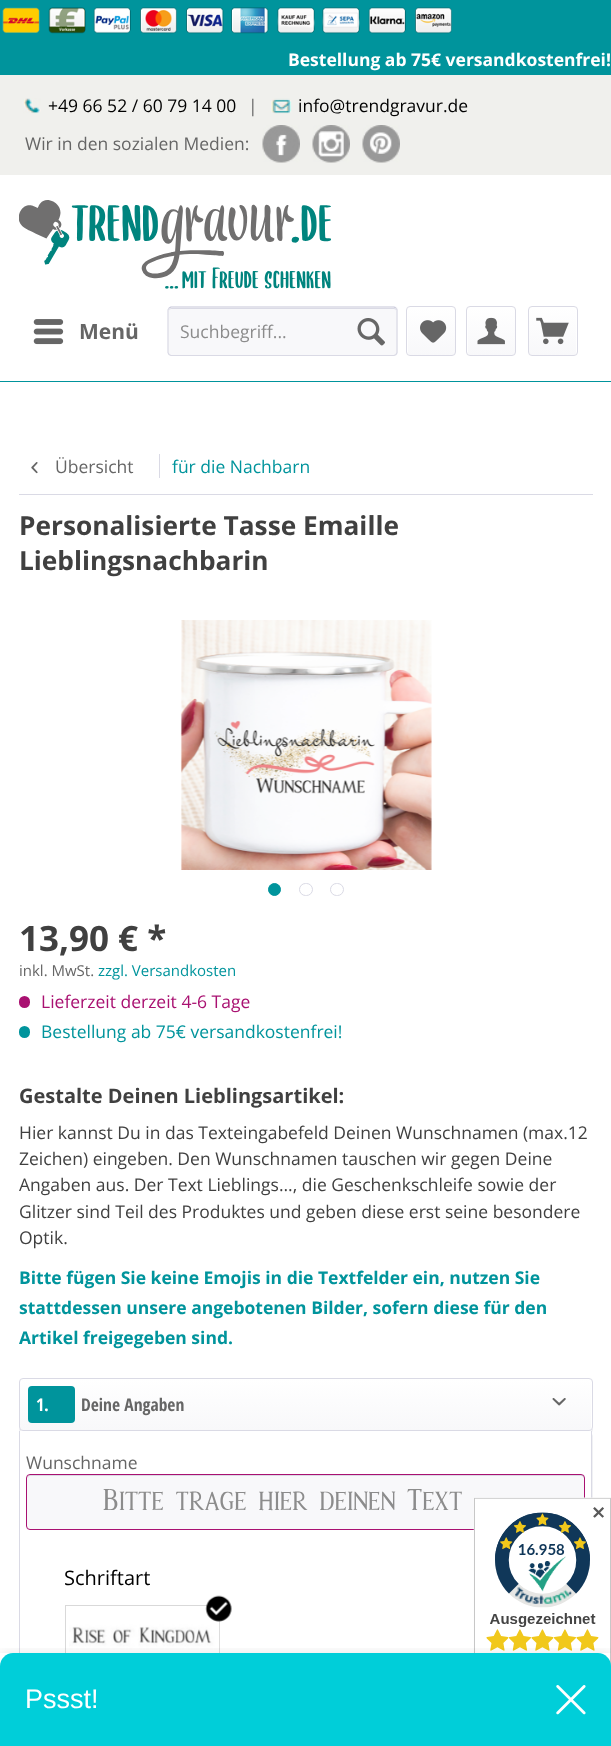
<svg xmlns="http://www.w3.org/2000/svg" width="611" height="1746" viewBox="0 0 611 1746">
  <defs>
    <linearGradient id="g1" gradientUnits="userSpaceOnUse" x1="431" y1="308" x2="431" y2="355"><stop offset="0" stop-color="rgb(255,255,255)"/><stop offset="1" stop-color="rgb(248,248,250)"/></linearGradient>
    <linearGradient id="g2" gradientUnits="userSpaceOnUse" x1="491" y1="308" x2="491" y2="355"><stop offset="0" stop-color="rgb(255,255,255)"/><stop offset="1" stop-color="rgb(248,248,250)"/></linearGradient>
    <linearGradient id="g3" gradientUnits="userSpaceOnUse" x1="553" y1="308" x2="553" y2="355"><stop offset="0" stop-color="rgb(255,255,255)"/><stop offset="1" stop-color="rgb(248,248,250)"/></linearGradient>
    <clipPath id="clip1"><path d="M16 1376H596V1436H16ZM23 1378H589C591 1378 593 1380 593 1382V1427C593 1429 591 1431 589 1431H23C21 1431 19 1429 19 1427V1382C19 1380 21 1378 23 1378Z" clip-rule="evenodd"/></clipPath>
    <linearGradient id="g4" gradientUnits="userSpaceOnUse" x1="306" y1="1379" x2="306" y2="1430"><stop offset="0" stop-color="rgb(255,255,255)"/><stop offset="1" stop-color="rgb(248,248,250)"/></linearGradient>
    <clipPath id="clip2"><rect x="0" y="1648" width="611" height="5"/></clipPath>
  </defs>
  <rect width="100%" height="100%" fill="rgb(255,255,255)"/>
  <rect x="0" y="381" width="611" height="1" fill="rgb(0,148,156)"/>
  <rect x="0" y="0" width="611" height="75" fill="rgb(0,148,156)"/>
  <image x="2" y="7" width="38" height="26" href="pic1.png"/>
  <image x="48" y="7" width="38" height="27" href="pic2.png"/>
  <image x="93" y="7" width="38" height="27" href="pic3.png"/>
  <image x="140" y="7" width="37" height="27" href="pic4.png"/>
  <image x="186" y="7" width="38" height="27" href="pic5.png"/>
  <image x="231" y="7" width="38" height="27" href="pic6.png"/>
  <image x="277" y="7" width="38" height="27" href="pic7.png"/>
  <image x="322" y="7" width="38" height="27" href="pic8.png"/>
  <image x="368" y="7" width="38" height="27" href="pic9.png"/>
  <image x="415" y="7" width="37" height="27" href="pic10.png"/>
  <text x="288" y="66" font-family="Open Sans" font-size="17.5" font-weight="bold" fill="rgb(255,255,255)">Bestellung ab 75€ versandkostenfrei!</text>
  <rect x="0" y="75" width="611" height="100" fill="rgb(240,240,237)"/>
  <image x="22" y="98" width="19" height="16" href="pic11.png"/>
  <text x="48" y="112" font-family="Open Sans" font-size="17.5" fill="rgb(0,0,0)">+49 66 52 / 60 79 14 00</text>
  <text x="248" y="112" font-family="Open Sans" font-size="17.5" fill="rgb(102,102,102)">|</text>
  <image x="270" y="98" width="22" height="16" href="pic12.png"/>
  <text x="298" y="112" font-family="Open Sans" font-size="17.5" fill="rgb(0,0,0)">info@trendgravur.de</text>
  <text x="25" y="150" font-family="Open Sans" font-size="17.5" fill="rgb(102,102,102)">Wir in den sozialen Medien:</text>
  <image x="262" y="125" width="38" height="38" href="pic13.png"/>
  <image x="312" y="125" width="38" height="38" href="pic14.png"/>
  <image x="362" y="125" width="38" height="38" href="pic15.png"/>
  <image x="19" y="200" width="312" height="89" href="pic16.png"/>
  <image x="33" y="319" width="31" height="26" href="pic17.png"/>
  <text x="79" y="339" font-family="Open Sans" font-size="21" font-weight="bold" fill="rgb(102,102,102)">Menü</text>
  <rect x="168" y="306" width="230" height="50" rx="4" fill="rgb(248,248,250)"/>
  <path d="M171 309H394C395 309 396 310 396 311C396 309 395 308 394 308H172C170 308 169 309 169 311C169 310 170 309 171 309Z" fill="rgb(218,218,229)"/>
  <path d="M169 308L171 307H394L396 308" fill="none" stroke="rgb(203,203,219)" stroke-width="1.2"/>
  <path d="M396 308L397 310V352.5L396 354.5L394 355.5H171L169 354.5L168 352.5V310L169 308" fill="none" stroke="rgb(218,218,229)" stroke-width="1.2"/>
  <text x="180" y="338" font-family="Open Sans" font-size="17.5" fill="rgb(140,140,140)">Suchbegriff...</text>
  <image x="357" y="318" width="28" height="28" href="pic18.png"/>
  <rect x="408" y="308" width="47" height="47" rx="2.5" fill="url(#g1)"/>
  <rect x="406.5" y="306.5" width="49" height="49" rx="3.5" fill="none" stroke="rgb(218,218,229)"/>
  <image x="420" y="320" width="27" height="23" href="pic19.png"/>
  <rect x="468" y="308" width="47" height="47" rx="2.5" fill="url(#g2)"/>
  <rect x="466.5" y="306.5" width="49" height="49" rx="3.5" fill="none" stroke="rgb(218,218,229)"/>
  <image x="477" y="317" width="28" height="28" href="pic20.png"/>
  <rect x="529" y="308" width="47" height="47" rx="2.5" fill="url(#g3)"/>
  <rect x="528.5" y="306.5" width="49" height="49" rx="3.5" fill="none" stroke="rgb(218,218,229)"/>
  <image x="536" y="317" width="33" height="28" href="pic21.png"/>
  <rect x="19" y="494" width="574" height="1" fill="rgb(218,218,229)"/>
  <image x="31" y="462" width="7" height="12" href="pic22.png"/>
  <text x="55" y="473" font-family="Open Sans" font-size="17.5" fill="rgb(102,102,102)">Übersicht</text>
  <rect x="159" y="454" width="1" height="24" fill="rgb(218,218,229)"/>
  <text x="172" y="473" font-family="Open Sans" font-size="17.5" fill="rgb(0,148,156)">für die Nachbarn</text>
  <g font-family="Open Sans" font-size="26.25" font-weight="bold" fill="rgb(64,64,64)">
    <text>
      <tspan x="19" y="535">Personalisierte Tasse Emaille</tspan>
      <tspan x="19" y="570">Lieblingsnachbarin</tspan>
    </text>
  </g>
  <image x="180" y="620" width="252" height="250" href="pic23.png"/>
  <circle cx="274.5" cy="889.5" r="6" fill="rgb(0,148,156)" stroke="rgb(0,148,156)"/>
  <rect x="299.5" y="883.5" width="13" height="12" rx="6" fill="none" stroke="rgb(218,218,229)"/>
  <rect x="330.5" y="883.5" width="13" height="12" rx="6" fill="none" stroke="rgb(218,218,229)"/>
  <text x="19" y="951" font-family="Open Sans" font-size="35" font-weight="bold" fill="rgb(64,64,64)">13,90 € *</text>
  <text x="19" y="976" font-family="Open Sans" font-size="15" fill="rgb(102,102,102)">inkl. MwSt.</text>
  <text x="98" y="976" font-family="Open Sans" font-size="15" fill="rgb(0,148,156)">zzgl. Versandkosten</text>
  <rect x="19" y="996" width="11" height="12" rx="5.5" fill="rgb(169,17,113)"/>
  <text x="41" y="1008" font-family="Open Sans" font-size="17.5" fill="rgb(169,17,113)">Lieferzeit derzeit 4-6 Tage</text>
  <rect x="19" y="1026" width="11" height="12" rx="5.5" fill="rgb(0,148,156)"/>
  <text x="41" y="1038" font-family="Open Sans" font-size="17.5" fill="rgb(0,148,156)">Bestellung ab 75€ versandkostenfrei!</text>
  <text x="19" y="1103" font-family="Open Sans" font-size="20" font-weight="bold" fill="rgb(64,64,64)">Gestalte Deinen Lieblingsartikel:</text>
  <g font-family="Open Sans" font-size="17.5" fill="rgb(64,64,64)">
    <text>
      <tspan x="19" y="1139">Hier kannst Du in das Texteingabefeld Deinen Wunschnamen (max.12</tspan>
      <tspan x="19" y="1165">Zeichen) eingeben. Den Wunschnamen tauschen wir gegen Deine</tspan>
      <tspan x="19" y="1191">Angaben aus. Der Text Lieblings..., die Geschenkschleife sowie der</tspan>
      <tspan x="19" y="1218">Glitzer sind Teil des Produktes und geben diese erst seine besondere</tspan>
      <tspan x="19" y="1244">Optik.</tspan>
    </text>
  </g>
  <g font-family="Open Sans" font-size="17.5" font-weight="bold" fill="rgb(0,148,156)">
    <text>
      <tspan x="19" y="1284">Bitte fügen Sie keine Emojis in die Textfelder ein, nutzen Sie</tspan>
      <tspan x="19" y="1314">stattdessen unsere angebotenen Bilder, sofern diese für den</tspan>
      <tspan x="19" y="1344">Artikel freigegeben sind.</tspan>
    </text>
  </g>
  <g clip-path="url(#clip1)">
    <rect x="19" y="1379" width="574" height="54" rx="4" fill="rgba(236,238,241,0.8)" filter="blur(0.5px)"/>
  </g>
  <rect x="20" y="1379" width="571" height="51" rx="2.5" fill="url(#g4)"/>
  <rect x="19.5" y="1378.5" width="573" height="52" rx="3.5" fill="none" stroke="rgb(218,218,229)"/>
  <rect x="28" y="1386" width="47" height="37" rx="4" fill="rgb(0,148,156)"/>
  <text x="36" y="1411" font-family="Open Sans Condensed" font-size="17.5" font-weight="bold" fill="rgb(255,255,255)">1.</text>
  <text x="81" y="1411" font-family="Open Sans Condensed" font-size="17.5" font-weight="bold" fill="rgb(102,102,102)">Deine Angaben</text>
  <image x="552" y="1398" width="14" height="8" href="pic24.png"/>
  <rect x="19" y="1433" width="574" height="298" rx="4" fill="rgba(236,238,241,0.8)" filter="blur(0.5px)"/>
  <rect x="20" y="1431" width="571" height="222" fill="rgb(255,255,255)"/>
  <path d="M19 1431H592V1726C592 1728 591 1730 589 1730H22C20 1730 19 1728 19 1726ZM20 1431H591V1726C591 1728 590 1729 589 1729H22C21 1729 20 1728 20 1726Z" fill="rgb(218,218,229)" fill-rule="evenodd"/>
  <text x="26" y="1469" font-family="Open Sans" font-size="17.5" fill="rgb(102,102,102)">Wunschname</text>
  <rect x="26" y="1474" width="559" height="56" rx="4" fill="rgb(248,248,250)"/>
  <path d="M30 1476H581C583 1476 584 1477 584 1479V1478C584 1476 583 1475 582 1475H30C29 1475 28 1476 28 1478V1479C28 1477 29 1476 30 1476Z" fill="rgb(218,218,229)"/>
  <rect x="26.5" y="1474.5" width="558" height="55" rx="3.5" fill="none" stroke="rgb(169,17,113)"/>
  <text x="103" y="1510" font-family="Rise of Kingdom" font-size="30" fill="rgb(140,140,140)">Bitte trage hier deinen Text</text>
  <text x="64" y="1585" font-family="Open Sans" font-size="20" fill="rgb(0,0,0)">Schriftart</text>
  <rect x="65.5" y="1605.5" width="154" height="60" fill="none" stroke="rgb(217,217,217)"/>
  <image x="69" y="1613" width="151" height="40" href="pic26.png"/>
  <image x="205" y="1595" width="27" height="27" href="pic25.png"/>
  <image x="473" y="1497" width="138" height="169" href="pic27.png"/>
  <text x="591" y="1519" font-family="DejaVu Sans" font-size="17.5" font-weight="bold" fill="rgb(89,89,89)">✕</text>
  <g clip-path="url(#clip2)">
    <rect x="0" y="1653" width="611" height="93" fill="rgba(0,0,0,0.1)" filter="blur(6px)"/>
  </g>
  <path d="M13 1653H598C605 1653 611 1659 611 1666V1746H0V1666C0 1659 6 1653 13 1653Z" fill="rgb(0,206,217)"/>
  <text x="25" y="1708" font-family="Liberation Sans" font-size="27" fill="rgb(255,255,255)">Pssst!</text>
  <image x="556" y="1685" width="30" height="30" href="pic28.png"/>
</svg>
